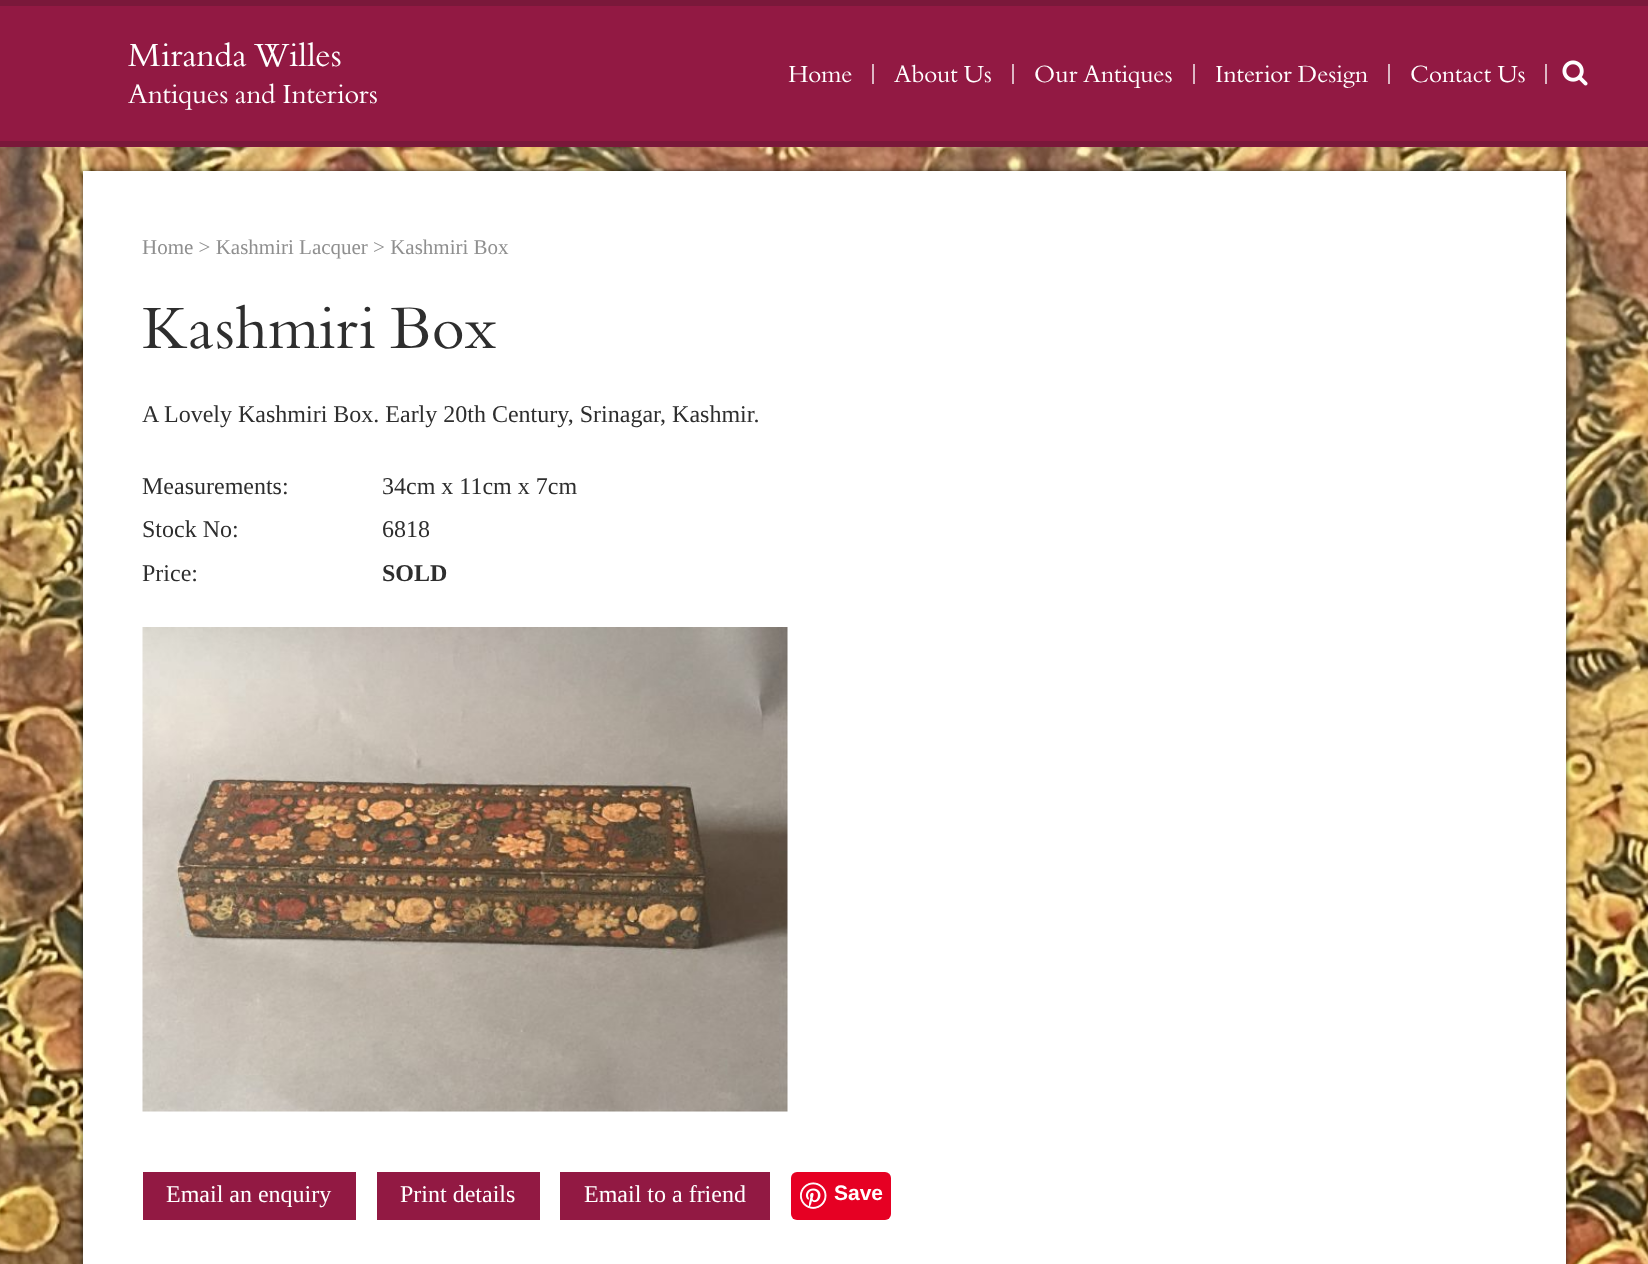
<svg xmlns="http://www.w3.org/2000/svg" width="1648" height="1264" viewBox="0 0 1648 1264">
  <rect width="100%" height="100%" fill="rgb(255,255,255)"/>
  <image x="0" y="147" width="1648" height="1117" href="pic1.png"/>
  <rect x="0" y="6" width="1648" height="135" fill="rgb(146,25,67)"/>
  <rect x="0" y="0" width="1648" height="6" fill="rgb(122,24,58)"/>
  <rect x="0" y="141" width="1648" height="6" fill="rgb(122,24,58)"/>
  <text x="128" y="66" font-family="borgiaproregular" font-size="33" fill="rgb(255,255,255)">Miranda Willes</text>
  <text x="128" y="103" font-family="borgiaproregular" font-size="27" fill="rgb(255,255,255)">Antiques and Interiors</text>
  <g font-family="borgiaproregular" font-size="24" fill="rgb(255,255,255)">
    <text x="788" y="82">Home</text>
    <text x="867" y="80">|</text>
    <text x="894" y="82">About Us</text>
    <text x="1007" y="80">|</text>
    <text x="1034" y="82">Our Antiques</text>
    <text x="1188" y="80">|</text>
    <text x="1215" y="82">Interior Design</text>
    <text x="1383" y="80">|</text>
    <text x="1410" y="82">Contact Us</text>
    <text x="1540" y="80">|</text>
  </g>
  <image x="1562" y="60" width="26" height="26" href="pic2.png"/>
  <rect x="83" y="171" width="1483" height="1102" fill="rgba(0,0,0,0.7)" filter="blur(3px)"/>
  <rect x="83" y="171" width="1483" height="1093" fill="rgb(255,255,255)"/>
  <text x="142" y="254" font-family="Liberation Serif" font-size="21" fill="rgb(143,143,143)">Home &gt; Kashmiri Lacquer &gt; Kashmiri Box</text>
  <text x="142" y="348" font-family="borgiaproregular" font-size="60" fill="rgb(46,46,46)">Kashmiri Box</text>
  <g font-family="Liberation Serif" font-size="24" fill="rgb(46,46,46)">
    <text x="142" y="422">A Lovely Kashmiri Box. Early 20th Century, Srinagar, Kashmir.</text>
    <text x="142" y="494">Measurements:</text>
    <text x="382" y="494">34cm x 11cm x 7cm</text>
    <text x="142" y="537">Stock No:</text>
    <text x="382" y="537">6818</text>
    <text x="142" y="581">Price:</text>
  </g>
  <text x="382" y="581" font-family="Liberation Serif" font-size="24" font-weight="bold" fill="rgb(46,46,46)">SOLD</text>
  <image x="142" y="627" width="646" height="485" href="pic3.png"/>
  <rect x="143" y="1172" width="213" height="48" fill="rgb(146,25,67)"/>
  <text x="166" y="1202" font-family="Liberation Serif" font-size="24" fill="rgb(255,255,255)">Email an enquiry</text>
  <rect x="377" y="1172" width="163" height="48" fill="rgb(146,25,67)"/>
  <text x="400" y="1202" font-family="Liberation Serif" font-size="24" fill="rgb(255,255,255)">Print details</text>
  <rect x="560" y="1172" width="210" height="48" fill="rgb(146,25,67)"/>
  <text x="584" y="1202" font-family="Liberation Serif" font-size="24" fill="rgb(255,255,255)">Email to a friend</text>
  <rect x="791" y="1172" width="100" height="48" rx="6" fill="rgb(230,0,35)"/>
  <image x="800" y="1182" width="27" height="27" href="pic4.png"/>
  <text x="834" y="1200" font-family="Liberation Sans" font-size="21" font-weight="bold" fill="rgb(255,255,255)">Save</text>
</svg>
